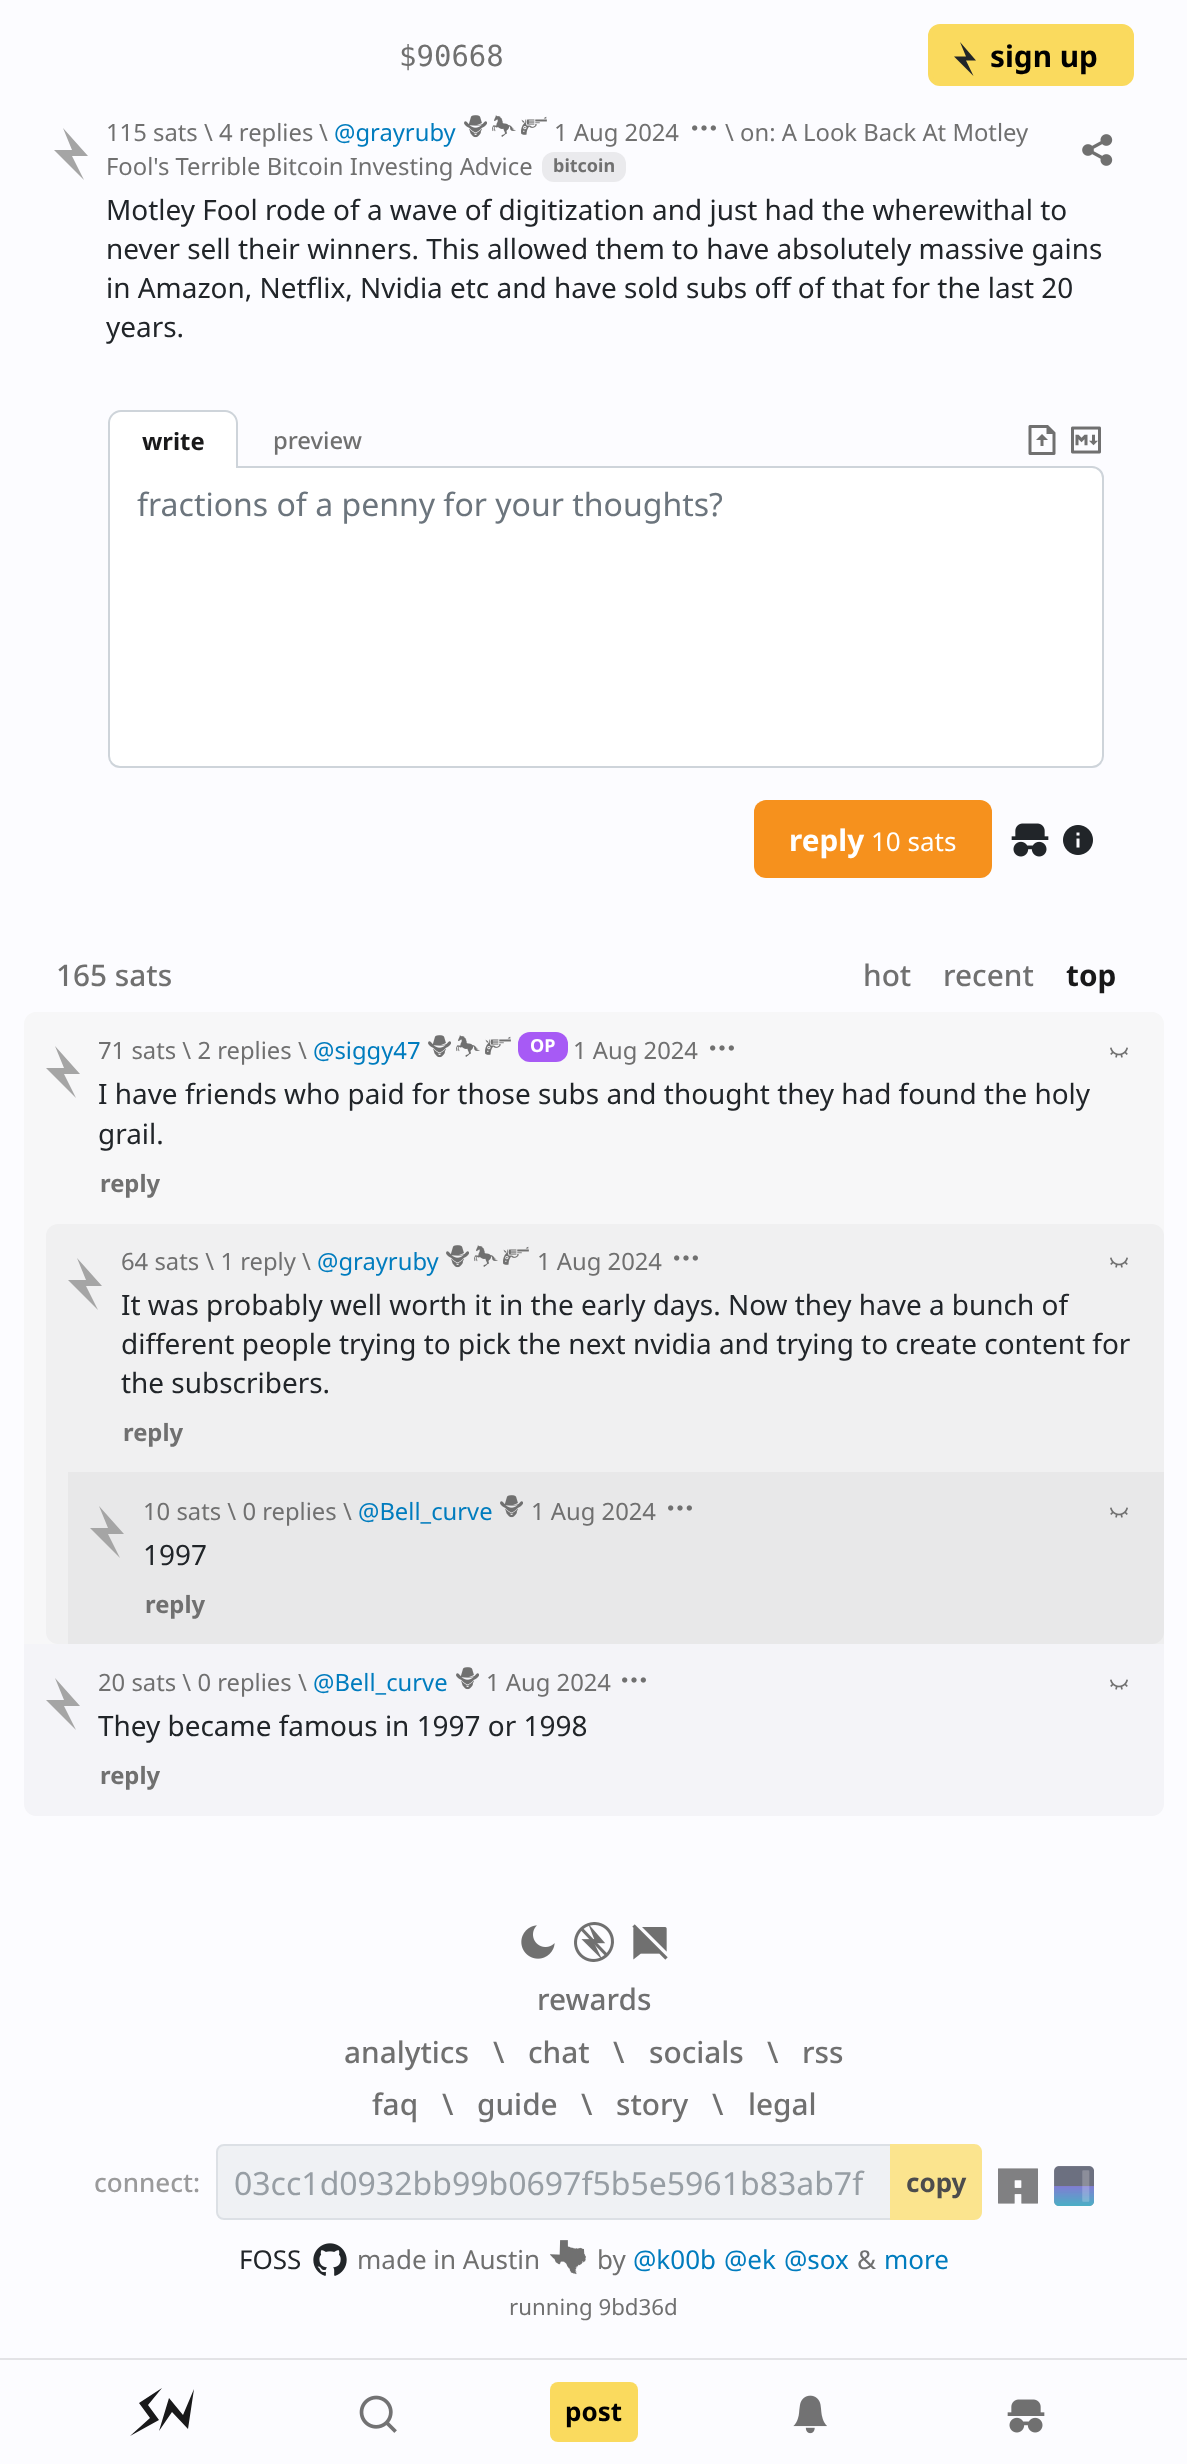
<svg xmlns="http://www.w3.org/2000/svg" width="1187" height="2464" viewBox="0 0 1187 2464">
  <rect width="100%" height="100%" fill="rgb(252,252,255)"/>
  <text x="399" y="66" font-family="DejaVu Sans Mono" font-size="29" fill="rgb(112,112,112)">$90668</text>
  <rect x="930" y="26" width="202" height="58" rx="10" fill="rgb(250,218,94)" stroke="rgb(250,218,94)" stroke-width="4"/>
  <path d="M960 42L966 56.5H954L973.5 76L966 60.5H976Z" fill="rgb(33,37,41)"/>
  <text x="990" y="67" font-family="Noto Sans" font-size="29.75" font-weight="bold" fill="rgb(0,0,0)">sign up</text>
  <path d="M63 128L72 150H54L84 180L72 156H88Z" fill="rgb(165,165,165)"/>
  <g font-family="Noto Sans" font-size="23.8" fill="rgb(112,112,112)">
    <text x="106" y="141">115 sats \ 4 replies</text>
    <text x="319" y="141">\</text>
  </g>
  <text x="334" y="141" font-family="Noto Sans" font-size="23.8" fill="rgb(0,124,190)">@grayruby</text>
  <image x="464" y="115" width="23" height="23" href="pic1.png"/>
  <image x="492" y="115" width="24" height="22" href="pic2.png"/>
  <image x="521" y="116" width="26" height="19" href="pic3.png"/>
  <text x="554" y="141" font-family="Noto Sans" font-size="23.8" fill="rgb(112,112,112)">1 Aug 2024</text>
  <image x="692" y="125" width="24" height="6" href="pic4.png"/>
  <g font-family="Noto Sans" font-size="23.8" fill="rgb(112,112,112)">
    <text x="725" y="141">\ on: A Look Back At Motley</text>
    <text x="106" y="175">Fool's Terrible Bitcoin Investing Advice</text>
  </g>
  <rect x="542" y="152" width="84" height="30" rx="12" fill="rgb(234,234,237)"/>
  <text x="553" y="172" font-family="Noto Sans" font-size="18" font-weight="bold" fill="rgb(112,112,112)">bitcoin</text>
  <image x="1082" y="134" width="31" height="32" href="pic5.png"/>
  <g font-family="Noto Sans" font-size="27.95" fill="rgb(33,37,41)">
    <text>
      <tspan x="106" y="220">Motley Fool rode of a wave of digitization and just had the wherewithal to</tspan>
      <tspan x="106" y="259">never sell their winners. This allowed them to have absolutely massive gains</tspan>
      <tspan x="106" y="298">in Amazon, Netflix, Nvidia etc and have sold subs off of that for the last 20</tspan>
      <tspan x="106" y="337">years.</tspan>
    </text>
  </g>
  <path d="M109 467H1092C1098 467 1103 472 1103 478V756C1103 762 1098 767 1092 767H120C114 767 109 762 109 756Z" fill="rgb(255,255,255)" stroke="rgb(206,212,218)" stroke-width="2"/>
  <path d="M120 410H226C232.5 410 238 415.5 238 422V468H108V422C108 415.5 113.5 410 120 410Z" fill="rgb(255,255,255)"/>
  <path d="M121 410H225C232 410 238 416 238 423V468H108V423C108 416 114 410 121 410ZM121 412H225C231 412 236 417 236 423V468H110V423C110 417 115 412 121 412Z" fill="rgb(206,212,218)" fill-rule="evenodd"/>
  <text x="142" y="450" font-family="Noto Sans" font-size="23.8" font-weight="bold" fill="rgb(25,25,26)">write</text>
  <text x="273" y="449" font-family="Noto Sans" font-size="23.8" font-weight="500" fill="rgb(112,112,112)">preview</text>
  <image x="1028" y="425" width="28" height="30" href="pic6.png"/>
  <image x="1071" y="426" width="30" height="28" href="pic7.png"/>
  <text x="137" y="516" font-family="Noto Sans" font-size="32" fill="rgb(108,117,125)">fractions of a penny for your thoughts?</text>
  <rect x="754" y="800" width="238" height="78" rx="12" fill="rgb(246,145,29)"/>
  <text x="789" y="851" font-family="Noto Sans" font-size="29.75" font-weight="bold" fill="rgb(255,255,255)">reply</text>
  <text x="871" y="851" font-family="Noto Sans" font-size="26" fill="rgb(255,255,255)">10 sats</text>
  <image x="1011" y="823" width="38" height="34" href="pic8.png"/>
  <image x="1063" y="825" width="30" height="30" href="pic9.png"/>
  <g font-family="Noto Sans" font-size="29.75" font-weight="500" fill="rgb(112,112,112)">
    <text x="56" y="986">165 sats</text>
    <text x="863" y="986">hot</text>
    <text x="943" y="986">recent</text>
  </g>
  <text x="1066" y="986" font-family="Noto Sans" font-size="29.75" font-weight="bold" fill="rgb(25,25,26)">top</text>
  <path d="M36 1012H1152C1158.5 1012 1164 1017.5 1164 1024V1644H24V1024C24 1017.5 29.5 1012 36 1012Z" fill="rgb(247,247,248)"/>
  <path d="M55 1046L64 1068H46L76 1098L64 1074H80Z" fill="rgb(165,165,165)"/>
  <g font-family="Noto Sans" font-size="23.8" fill="rgb(112,112,112)">
    <text x="98" y="1059">71 sats \ 2 replies</text>
    <text x="298" y="1059">\</text>
  </g>
  <text x="313" y="1059" font-family="Noto Sans" font-size="23.8" fill="rgb(0,124,190)">@siggy47</text>
  <image x="428" y="1035" width="23" height="23" href="pic10.png"/>
  <image x="456" y="1035" width="24" height="22" href="pic11.png"/>
  <image x="485" y="1036" width="26" height="19" href="pic12.png"/>
  <rect x="518" y="1032" width="50" height="30" rx="12" fill="rgb(167,90,245)"/>
  <text x="530" y="1052" font-family="Noto Sans" font-size="18" font-weight="bold" fill="rgb(255,255,255)">OP</text>
  <text x="573" y="1059" font-family="Noto Sans" font-size="23.8" fill="rgb(112,112,112)">1 Aug 2024</text>
  <image x="710" y="1045" width="24" height="6" href="pic13.png"/>
  <image x="1110" y="1047" width="18" height="11" href="pic14.png"/>
  <g font-family="Noto Sans" font-size="27.95" fill="rgb(33,37,41)">
    <text>
      <tspan x="98" y="1104">I have friends who paid for those subs and thought they had found the holy</tspan>
      <tspan x="98" y="1144">grail.</tspan>
    </text>
  </g>
  <text x="100" y="1192" font-family="Noto Sans" font-size="23.8" font-weight="bold" fill="rgb(112,112,112)">reply</text>
  <rect x="46" y="1224" width="1118" height="420" rx="12" fill="rgb(240,240,241)"/>
  <path d="M77 1258L86 1280H68L98 1310L86 1286H102Z" fill="rgb(165,165,165)"/>
  <g font-family="Noto Sans" font-size="23.8" fill="rgb(112,112,112)">
    <text x="121" y="1270">64 sats \ 1 reply</text>
    <text x="302" y="1270">\</text>
  </g>
  <text x="317" y="1270" font-family="Noto Sans" font-size="23.8" fill="rgb(0,124,190)">@grayruby</text>
  <image x="446" y="1245" width="23" height="23" href="pic15.png"/>
  <image x="474" y="1245" width="24" height="22" href="pic16.png"/>
  <image x="503" y="1246" width="26" height="19" href="pic17.png"/>
  <text x="537" y="1270" font-family="Noto Sans" font-size="23.8" fill="rgb(112,112,112)">1 Aug 2024</text>
  <image x="674" y="1255" width="24" height="6" href="pic18.png"/>
  <image x="1110" y="1257" width="18" height="11" href="pic19.png"/>
  <g font-family="Noto Sans" font-size="27.95" fill="rgb(33,37,41)">
    <text>
      <tspan x="121" y="1315">It was probably well worth it in the early days. Now they have a bunch of</tspan>
      <tspan x="121" y="1354">different people trying to pick the next nvidia and trying to create content for</tspan>
      <tspan x="121" y="1393">the subscribers.</tspan>
    </text>
  </g>
  <text x="123" y="1441" font-family="Noto Sans" font-size="23.8" font-weight="bold" fill="rgb(112,112,112)">reply</text>
  <rect x="68" y="1472" width="1096" height="172" fill="rgba(0,0,0,0.03)"/>
  <path d="M99 1506L108 1528H90L120 1558L108 1534H124Z" fill="rgb(165,165,165)"/>
  <g font-family="Noto Sans" font-size="23.8" fill="rgb(112,112,112)">
    <text x="143" y="1520">10 sats \ 0 replies</text>
    <text x="343" y="1520">\</text>
  </g>
  <text x="358" y="1520" font-family="Noto Sans" font-size="23.8" fill="rgb(0,124,190)">@Bell_curve</text>
  <image x="500" y="1495" width="23" height="23" href="pic20.png"/>
  <text x="531" y="1520" font-family="Noto Sans" font-size="23.8" fill="rgb(112,112,112)">1 Aug 2024</text>
  <image x="668" y="1505" width="24" height="6" href="pic21.png"/>
  <image x="1110" y="1507" width="18" height="11" href="pic22.png"/>
  <text x="143" y="1565" font-family="Noto Sans" font-size="27.95" fill="rgb(33,37,41)">1997</text>
  <text x="145" y="1613" font-family="Noto Sans" font-size="23.8" font-weight="bold" fill="rgb(112,112,112)">reply</text>
  <path d="M24 1644H1164V1804C1164 1810.5 1158.5 1816 1152 1816H36C29.5 1816 24 1810.5 24 1804Z" fill="rgb(244,244,248)"/>
  <path d="M55 1678L64 1700H46L76 1730L64 1706H80Z" fill="rgb(165,165,165)"/>
  <g font-family="Noto Sans" font-size="23.8" fill="rgb(112,112,112)">
    <text x="98" y="1691">20 sats \ 0 replies</text>
    <text x="298" y="1691">\</text>
  </g>
  <text x="313" y="1691" font-family="Noto Sans" font-size="23.8" fill="rgb(0,124,190)">@Bell_curve</text>
  <image x="456" y="1667" width="23" height="23" href="pic23.png"/>
  <text x="486" y="1691" font-family="Noto Sans" font-size="23.8" fill="rgb(112,112,112)">1 Aug 2024</text>
  <image x="622" y="1677" width="24" height="6" href="pic24.png"/>
  <image x="1110" y="1679" width="18" height="11" href="pic25.png"/>
  <text x="98" y="1736" font-family="Noto Sans" font-size="27.95" fill="rgb(33,37,41)">They became famous in 1997 or 1998</text>
  <text x="100" y="1784" font-family="Noto Sans" font-size="23.8" font-weight="bold" fill="rgb(112,112,112)">reply</text>
  <image x="521" y="1925" width="34" height="34" href="pic26.png"/>
  <image x="574" y="1922" width="40" height="40" href="pic27.png"/>
  <image x="632" y="1924" width="36" height="36" href="pic28.png"/>
  <g font-family="Noto Sans" font-size="29.75" font-weight="500" fill="rgb(112,112,112)">
    <text x="537" y="2010">rewards</text>
    <text x="344" y="2063">analytics</text>
    <text x="493" y="2063">\</text>
    <text x="528" y="2063">chat</text>
    <text x="613" y="2063">\</text>
    <text x="649" y="2063">socials</text>
    <text x="767" y="2063">\</text>
    <text x="802" y="2063">rss</text>
    <text x="372" y="2115">faq</text>
    <text x="442" y="2115">\</text>
    <text x="477" y="2115">guide</text>
    <text x="581" y="2115">\</text>
    <text x="616" y="2115">story</text>
    <text x="712" y="2115">\</text>
    <text x="748" y="2115">legal</text>
  </g>
  <text x="94" y="2192" font-family="Noto Sans" font-size="26" font-weight="500" fill="rgb(154,154,155)">connect:</text>
  <path d="M224 2145H891V2219H224C220 2219 217 2216 217 2212V2152C217 2148 220 2145 224 2145Z" fill="rgb(239,241,244)" stroke="rgb(220,224,229)" stroke-width="2"/>
  <text x="234" y="2195" font-family="Noto Sans" font-size="32" fill="rgb(151,158,164)">03cc1d0932bb99b0697f5b5e5961b83ab7f</text>
  <path d="M890 2144H974C978.5 2144 982 2147.5 982 2152V2212C982 2216.5 978.5 2220 974 2220H890Z" fill="rgb(251,228,142)"/>
  <text x="906" y="2192" font-family="Noto Sans" font-size="26" font-weight="bold" fill="rgb(76,76,77)">copy</text>
  <image x="998" y="2168" width="40" height="36" href="pic29.png"/>
  <image x="1054" y="2166" width="40" height="40" href="pic30.png"/>
  <text x="239" y="2269" font-family="Noto Sans" font-size="26" fill="rgb(33,37,41)">FOSS</text>
  <image x="313" y="2243" width="34" height="33" href="pic31.png"/>
  <text x="357" y="2269" font-family="Noto Sans" font-size="26" fill="rgb(112,112,112)">made in Austin</text>
  <image x="550" y="2240" width="36" height="35" href="pic32.png"/>
  <text x="597" y="2269" font-family="Noto Sans" font-size="26" fill="rgb(112,112,112)">by</text>
  <g font-family="Noto Sans" font-size="26" fill="rgb(0,124,190)">
    <text x="633" y="2269">@k00b</text>
    <text x="724" y="2269">@ek</text>
    <text x="784" y="2269">@sox</text>
  </g>
  <text x="857" y="2269" font-family="Noto Sans" font-size="26" fill="rgb(112,112,112)">&amp;</text>
  <text x="884" y="2269" font-family="Noto Sans" font-size="26" fill="rgb(0,124,190)">more</text>
  <text x="509" y="2315" font-family="Noto Sans" font-size="22.25" fill="rgb(112,112,112)">running 9bd36d</text>
  <rect x="0" y="2358" width="1187" height="2" fill="rgb(227,227,230)"/>
  <path d="M139 2403L150 2418L130 2436L159 2420L148 2405L162 2388ZM183 2415L169 2398L159 2431L172 2412L188 2429L194 2389Z" fill="rgb(25,25,26)" fill-rule="evenodd"/>
  <image x="359" y="2395" width="38" height="38" href="pic33.png"/>
  <rect x="550" y="2382" width="88" height="60" rx="8" fill="rgb(250,218,94)"/>
  <text x="565" y="2421" font-family="Noto Sans" font-size="26" font-weight="bold" fill="rgb(0,0,0)">post</text>
  <image x="793" y="2395" width="34" height="39" href="pic34.png"/>
  <image x="1007" y="2399" width="38" height="34" href="pic35.png"/>
</svg>
